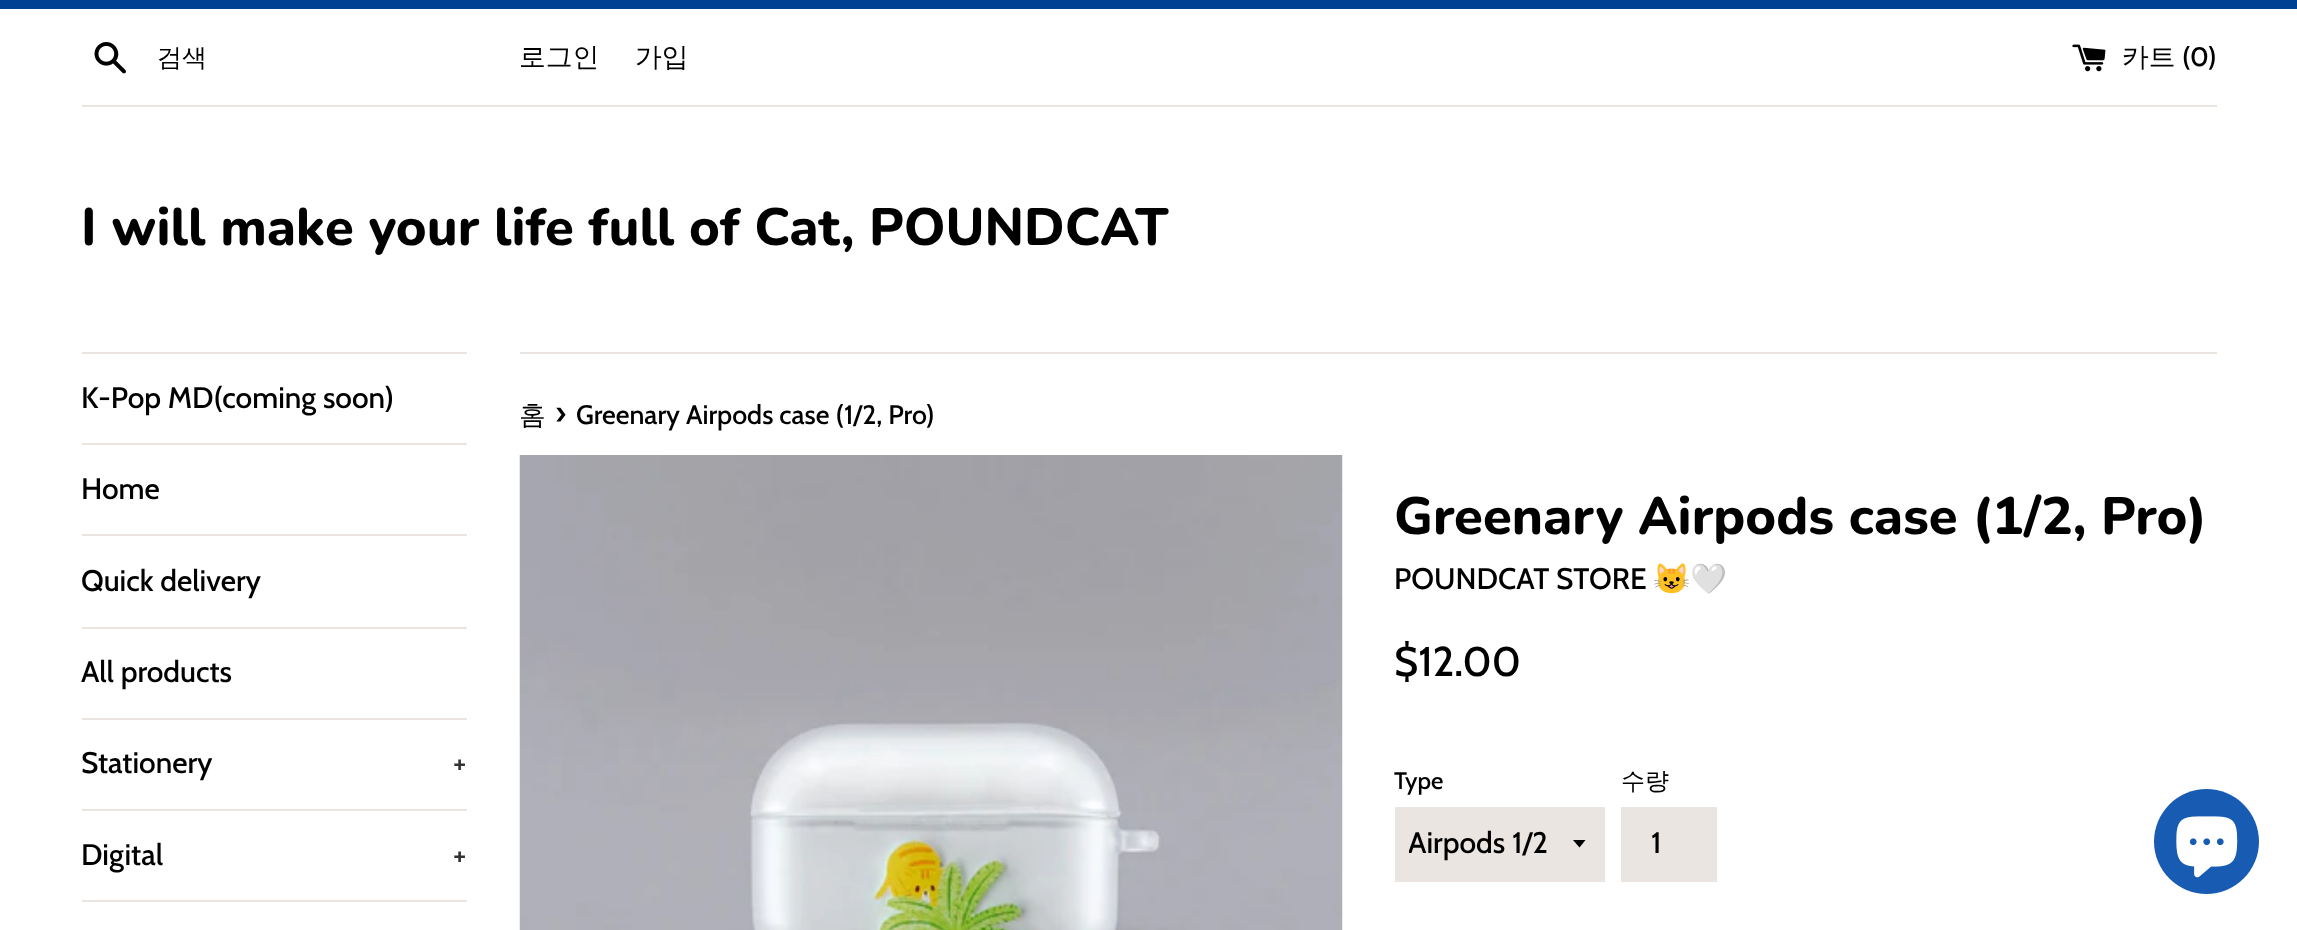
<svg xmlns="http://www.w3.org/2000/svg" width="2297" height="930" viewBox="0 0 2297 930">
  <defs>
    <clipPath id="clip1"><rect x="1409" y="821" width="147" height="47"/></clipPath>
  </defs>
  <rect width="100%" height="100%" fill="rgb(255,255,255)"/>
  <rect x="0" y="0" width="2297" height="9" fill="rgb(0,65,148)"/>
  <image x="94" y="42" width="32" height="32" href="pic1.png"/>
  <text x="157" y="66" font-family="WenQuanYi Zen Hei" font-size="25" font-weight="500" fill="rgb(0,0,0)">검색</text>
  <g font-family="WenQuanYi Zen Hei" font-size="26.75" font-weight="500" fill="rgb(0,0,0)">
    <text x="519" y="66">로그인</text>
    <text x="635" y="66">가입</text>
  </g>
  <image x="2072" y="44" width="34" height="28" href="pic2.png"/>
  <text x="2122" y="66" font-family="WenQuanYi Zen Hei" font-size="26.75" font-weight="500" fill="rgb(0,0,0)">카트</text>
  <g font-family="Cabin" font-size="26.75" font-weight="500" fill="rgb(0,0,0)">
    <text x="2182" y="66">(</text>
    <text x="2190" y="66">0</text>
    <text x="2208" y="66">)</text>
  </g>
  <rect x="82" y="105" width="2135" height="2" fill="rgb(234,229,225)"/>
  <text x="81" y="245" font-family="Nunito" font-size="52.5" font-weight="800" fill="rgb(0,0,0)">I will make your life full of Cat, POUNDCAT</text>
  <rect x="82" y="352" width="385" height="2" fill="rgb(234,229,225)"/>
  <rect x="82" y="443" width="385" height="2" fill="rgb(234,229,225)"/>
  <text x="81" y="408" font-family="Cabin" font-size="29.75" font-weight="500" fill="rgb(0,0,0)">K-Pop MD(coming soon)</text>
  <rect x="82" y="534" width="385" height="2" fill="rgb(234,229,225)"/>
  <text x="81" y="499" font-family="Cabin" font-size="29.75" font-weight="500" fill="rgb(0,0,0)">Home</text>
  <rect x="82" y="627" width="385" height="2" fill="rgb(234,229,225)"/>
  <text x="81" y="591" font-family="Cabin" font-size="29.75" font-weight="500" fill="rgb(0,0,0)">Quick delivery</text>
  <rect x="82" y="718" width="385" height="2" fill="rgb(234,229,225)"/>
  <text x="81" y="682" font-family="Cabin" font-size="29.75" font-weight="500" fill="rgb(0,0,0)">All products</text>
  <rect x="82" y="809" width="385" height="2" fill="rgb(234,229,225)"/>
  <text x="81" y="773" font-family="Cabin" font-size="29.75" font-weight="500" fill="rgb(0,0,0)">Stationery</text>
  <text x="453" y="773" font-family="Cabin" font-size="29.75" font-weight="500" fill="rgb(51,51,51)">+</text>
  <rect x="82" y="900" width="385" height="2" fill="rgb(234,229,225)"/>
  <text x="81" y="865" font-family="Cabin" font-size="29.75" font-weight="500" fill="rgb(0,0,0)">Digital</text>
  <text x="453" y="865" font-family="Cabin" font-size="29.75" font-weight="500" fill="rgb(51,51,51)">+</text>
  <rect x="520" y="352" width="1697" height="2" fill="rgb(234,229,225)"/>
  <text x="519" y="424" font-family="WenQuanYi Zen Hei" font-size="26.75" font-weight="500" fill="rgb(0,0,0)">홈</text>
  <text x="555" y="424" font-family="Cabin" font-size="33" font-weight="500" fill="rgb(0,0,0)">›</text>
  <text x="576" y="424" font-family="Cabin" font-size="26.75" font-weight="500" fill="rgb(0,0,0)">Greenary Airpods case (1/2, Pro)</text>
  <image x="519" y="455" width="824" height="475" href="pic3.png"/>
  <text x="1394" y="534" font-family="Nunito" font-size="52.5" font-weight="800" fill="rgb(0,0,0)">Greenary Airpods case (1/2, Pro)</text>
  <text x="1394" y="589" font-family="Cabin" font-size="29.75" font-weight="500" fill="rgb(0,0,0)">POUNDCAT STORE</text>
  <text x="1653" y="589" font-family="Noto Color Emoji" font-size="29.75" fill="rgb(0,0,0)">😺🤍</text>
  <text x="1394" y="676" font-family="Cabin" font-size="41.5" font-weight="500" fill="rgb(0,0,0)">$12.00</text>
  <text x="1394" y="789" font-family="Cabin" font-size="24" font-weight="500" fill="rgb(0,0,0)">Type</text>
  <rect x="1395" y="807" width="210" height="75" fill="rgb(234,229,225)"/>
  <path d="M1573 840L1579.5 847.5L1585.5 840Z" fill="rgb(0,0,0)"/>
  <g clip-path="url(#clip1)">
    <text x="1408" y="853" font-family="Cabin" font-size="29.75" font-weight="500" fill="rgb(0,0,0)">Airpods 1/2</text>
  </g>
  <text x="1621" y="789" font-family="WenQuanYi Zen Hei" font-size="24" font-weight="500" fill="rgb(0,0,0)">수량</text>
  <rect x="1621" y="807" width="96" height="75" fill="rgb(234,229,225)"/>
  <text x="1651" y="853" font-family="Cabin" font-size="29.75" font-weight="500" fill="rgb(0,0,0)">1</text>
  <circle cx="2206.5" cy="841.5" r="52.5" fill="rgb(23,92,178)"/>
  <image x="2176" y="816" width="62" height="62" href="pic4.png"/>
</svg>
